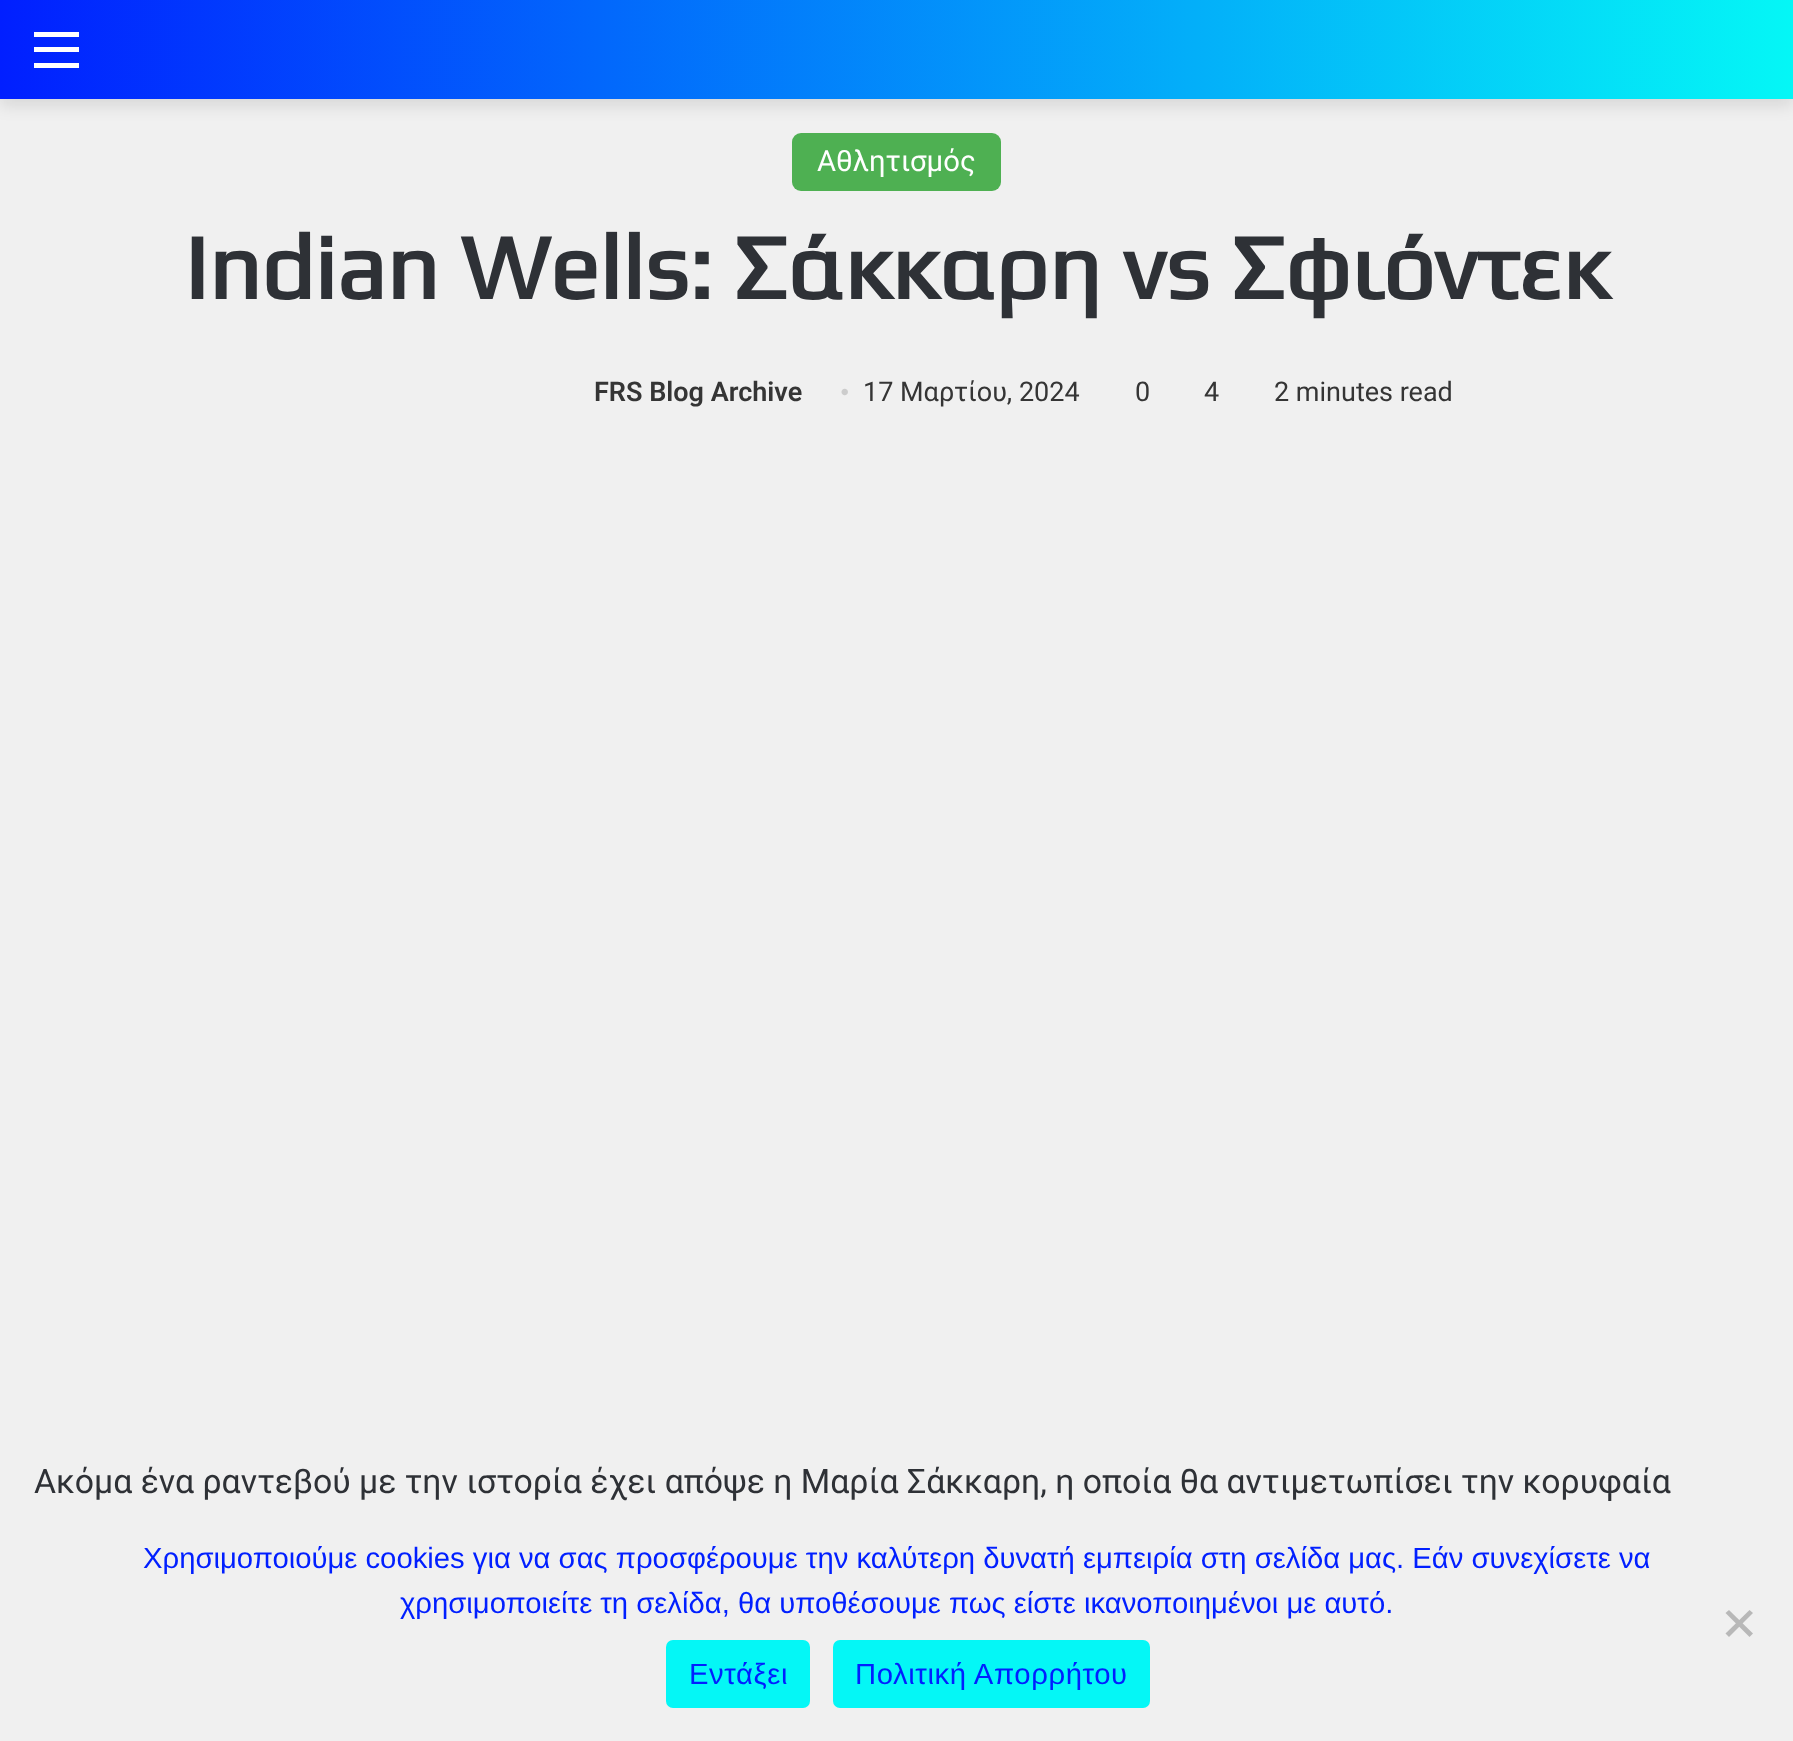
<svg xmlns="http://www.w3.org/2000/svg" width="1793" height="1741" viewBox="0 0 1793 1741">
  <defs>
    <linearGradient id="g1" gradientUnits="userSpaceOnUse" x1="0" y1="50" x2="1793" y2="49"><stop offset="0" stop-color="rgb(1,31,255)"/><stop offset="1" stop-color="rgb(4,247,246)"/></linearGradient>
  </defs>
  <rect width="100%" height="100%" fill="rgb(240,240,240)"/>
  <rect x="0" y="7" width="1793" height="99" fill="rgba(0,0,0,0.1)" filter="blur(8px)"/>
  <rect x="0" y="0" width="1793" height="99" fill="url(#g1)"/>
  <rect x="34" y="47" width="45" height="5" fill="rgb(255,255,255)"/>
  <rect x="34" y="32" width="45" height="5" fill="rgb(255,255,255)"/>
  <rect x="34" y="63" width="45" height="5" fill="rgb(255,255,255)"/>
  <rect x="792" y="133" width="209" height="58" rx="9" fill="rgb(78,176,82)"/>
  <text x="817" y="171" font-family="Roboto" font-size="29.25" fill="rgb(255,255,255)">Αθλητισμός</text>
  <text x="184" y="299" font-family="Play" font-size="92.25" font-weight="bold" fill="rgb(46,49,54)">Indian Wells: Σάκκαρη vs Σφιόντεκ</text>
  <text x="594" y="401" font-family="Roboto" font-size="27" font-weight="600" fill="rgb(53,53,53)">FRS Blog Archive</text>
  <text x="840" y="401" font-family="Liberation Serif" font-size="27" fill="rgb(204,204,204)">•</text>
  <g font-family="Roboto" font-size="27" fill="rgb(53,53,53)">
    <text x="863" y="401">17 Μαρτίου, 2024</text>
    <text x="1135" y="401">0</text>
    <text x="1204" y="401">4</text>
    <text x="1274" y="401">2 minutes read</text>
  </g>
  <text x="34" y="1493" font-family="Roboto" font-size="33.75" fill="rgb(46,49,54)">Ακόμα ένα ραντεβού με την ιστορία έχει απόψε η Μαρία Σάκκαρη, η οποία θα αντιμετωπίσει την κορυφαία</text>
  <g font-family="Liberation Sans" font-size="29.25" fill="rgb(1,31,255)">
    <text x="143" y="1568">Χρησιμοποιούμε cookies για να σας προσφέρουμε την καλύτερη δυνατή εμπειρία στη σελίδα μας. Εάν συνεχίσετε να</text>
    <text x="400" y="1613">χρησιμοποιείτε τη σελίδα, θα υποθέσουμε πως είστε ικανοποιημένοι με αυτό.</text>
  </g>
  <path d="M1749.5 1610L1753 1613L1729 1637L1725.5 1633.5Z" fill="rgb(184,184,184)"/>
  <path d="M1725.5 1613L1729 1610L1753 1633.5L1749.5 1637Z" fill="rgb(184,184,184)"/>
  <rect x="666" y="1640" width="144" height="68" rx="7" fill="rgb(4,247,246)"/>
  <text x="689" y="1684" font-family="Liberation Sans" font-size="29.25" letter-spacing="0.6" fill="rgb(1,31,255)">Εντάξει</text>
  <rect x="833" y="1640" width="317" height="68" rx="7" fill="rgb(4,247,246)"/>
  <text x="855" y="1684" font-family="Liberation Sans" font-size="29.25" letter-spacing="0.6" fill="rgb(1,31,255)">Πολιτική Απορρήτου</text>
</svg>
